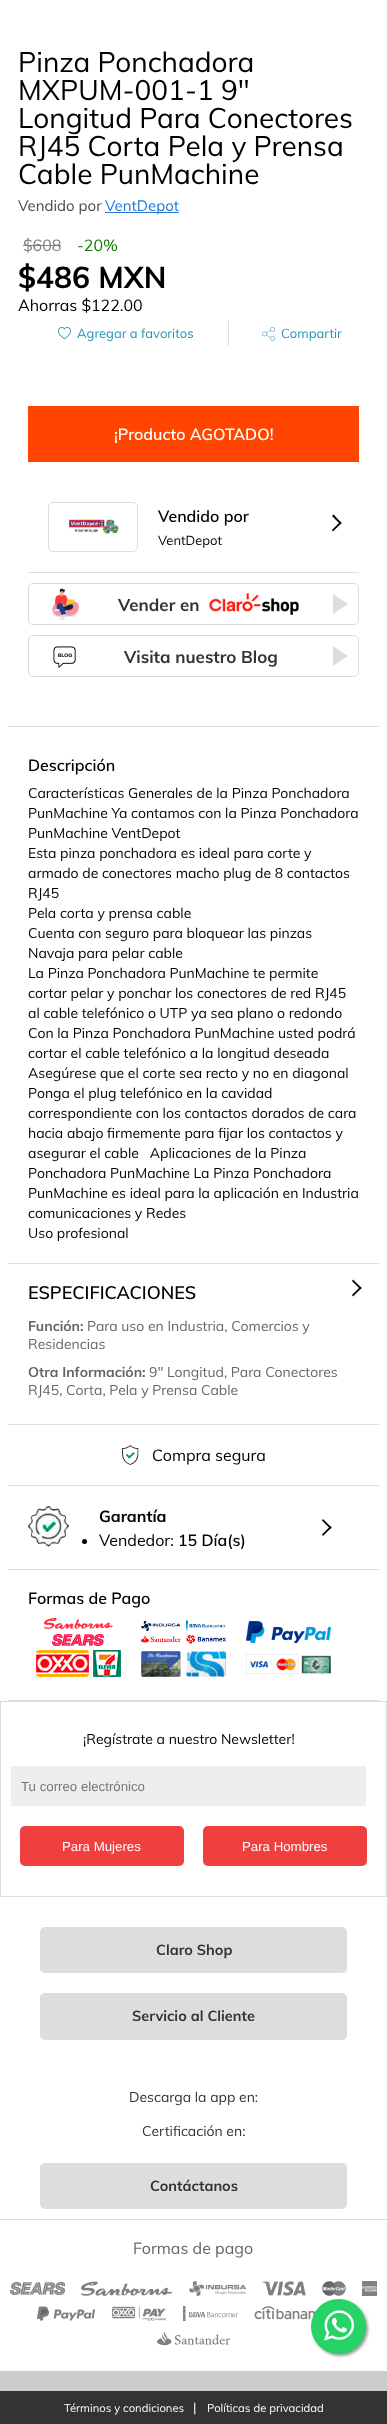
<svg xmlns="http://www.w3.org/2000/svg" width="387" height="2424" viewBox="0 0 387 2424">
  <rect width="100%" height="100%" fill="rgb(255,255,255)"/>
  <g font-family="Muli" font-size="28" fill="rgb(0,0,0)">
    <text>
      <tspan x="18" y="72">Pinza Ponchadora</tspan>
      <tspan x="18" y="100">MXPUM-001-1 9"</tspan>
      <tspan x="18" y="128">Longitud Para Conectores</tspan>
      <tspan x="18" y="156">RJ45 Corta Pela y Prensa</tspan>
      <tspan x="18" y="184">Cable PunMachine</tspan>
    </text>
  </g>
  <text x="18" y="211" font-family="Muli" font-size="15" fill="rgb(74,74,74)">Vendido por</text>
  <rect x="105" y="212" width="74" height="1" fill="rgb(34,118,214)"/>
  <text x="105" y="211" font-family="Muli" font-size="15" fill="rgb(34,118,214)">VentDepot</text>
  <text x="23" y="251" font-family="Muli" font-size="16" fill="rgb(128,128,128)">$608</text>
  <rect x="23" y="245" width="38" height="1" fill="rgb(128,128,128)"/>
  <text x="77" y="251" font-family="Muli" font-size="16" fill="rgb(17,124,0)">-20%</text>
  <text x="18" y="288" font-family="Muli" font-size="30" font-weight="bold" fill="rgb(0,0,0)">$486 MXN</text>
  <text x="18" y="311" font-family="Muli" font-size="16" fill="rgb(0,0,0)">Ahorras $122.00</text>
  <rect x="228" y="321" width="1" height="25" fill="rgb(221,221,221)"/>
  <image x="58" y="327" width="13" height="13" href="pic1.png"/>
  <text x="77" y="338" font-family="Muli" font-size="13" fill="rgb(37,145,180)">Agregar a favoritos</text>
  <image x="262" y="327" width="13" height="14" href="pic2.png"/>
  <text x="281" y="338" font-family="Muli" font-size="13" fill="rgb(37,145,180)">Compartir</text>
  <rect x="28" y="406" width="331" height="56" fill="rgb(255,69,0)"/>
  <text x="114" y="440" font-family="Muli" font-size="16" font-weight="600" fill="rgb(255,255,255)">¡Producto AGOTADO!</text>
  <rect x="28" y="572" width="331" height="1" fill="rgb(221,221,221)"/>
  <rect x="48.5" y="502.5" width="89" height="49" rx="4.5" fill="none" stroke="rgb(221,221,221)"/>
  <image x="68" y="519" width="51" height="15" href="pic3.png"/>
  <text x="158" y="522" font-family="Muli" font-size="16" font-weight="600" fill="rgb(0,0,0)">Vendido por</text>
  <text x="158" y="545" font-family="Muli" font-size="13" fill="rgb(0,0,0)">VentDepot</text>
  <path d="M333.5 514.5L341.5 523L340.5 524.5L332 516Z" fill="rgb(0,0,0)"/>
  <path d="M340.5 521.5L341.5 523L333 531.5L332 530Z" fill="rgb(0,0,0)"/>
  <rect x="28.5" y="583.5" width="330" height="41" rx="4.5" fill="none" stroke="rgb(218,218,218)"/>
  <image x="52" y="588" width="27" height="32" href="pic4.png"/>
  <text x="118" y="611" font-family="Muli" font-size="17" font-weight="bold" fill="rgb(51,51,51)">Vender en</text>
  <image x="209" y="593" width="90" height="22" href="pic5.png"/>
  <path d="M333 614V594L348 604Z" fill="rgb(221,221,221)"/>
  <rect x="28.5" y="635.5" width="330" height="41" rx="4.5" fill="none" stroke="rgb(218,218,218)"/>
  <image x="53" y="646" width="23" height="22" href="pic6.png"/>
  <text x="124" y="663" font-family="Muli" font-size="17" font-weight="bold" fill="rgb(51,51,51)">Visita nuestro Blog</text>
  <path d="M333 666V646L348 656Z" fill="rgb(221,221,221)"/>
  <rect x="8" y="726" width="371" height="1" fill="rgb(221,221,221)"/>
  <rect x="8" y="1263" width="371" height="1" fill="rgb(221,221,221)"/>
  <text x="28" y="771" font-family="Muli" font-size="16" font-weight="600" fill="rgb(0,0,0)">Descripción</text>
  <g font-family="Muli" font-size="14" fill="rgb(0,0,0)">
    <text xml:space="preserve"><tspan x="28" y="798">Características Generales de la Pinza Ponchadora</tspan><tspan x="28" y="818">PunMachine Ya contamos con la Pinza Ponchadora</tspan><tspan x="28" y="838">PunMachine VentDepot</tspan><tspan x="28" y="858">Esta pinza ponchadora es ideal para corte y</tspan><tspan x="28" y="878">armado de conectores macho plug de 8 contactos</tspan><tspan x="28" y="898">RJ45</tspan><tspan x="28" y="918">Pela corta y prensa cable</tspan><tspan x="28" y="938">Cuenta con seguro para bloquear las pinzas</tspan><tspan x="28" y="958">Navaja para pelar cable</tspan><tspan x="28" y="978">La Pinza Ponchadora PunMachine te permite</tspan><tspan x="28" y="998">cortar pelar y ponchar los conectores de red RJ45</tspan><tspan x="28" y="1018">al cable telefónico o UTP ya sea plano o redondo</tspan><tspan x="28" y="1038">Con la Pinza Ponchadora PunMachine usted podrá</tspan><tspan x="28" y="1058">cortar el cable telefónico a la longitud deseada</tspan><tspan x="28" y="1078">Asegúrese que el corte sea recto y no en diagonal</tspan><tspan x="28" y="1098">Ponga el plug telefónico en la cavidad</tspan><tspan x="28" y="1118">correspondiente con los contactos dorados de cara</tspan><tspan x="28" y="1138">hacia abajo firmemente para fijar los contactos y</tspan><tspan x="28" y="1158">asegurar el cable   Aplicaciones de la Pinza</tspan><tspan x="28" y="1178">Ponchadora PunMachine La Pinza Ponchadora</tspan><tspan x="28" y="1198">PunMachine es ideal para la aplicación en Industria</tspan><tspan x="28" y="1218">comunicaciones y Redes</tspan><tspan x="28" y="1238">Uso profesional</tspan></text>
  </g>
  <rect x="8" y="1424" width="371" height="1" fill="rgb(221,221,221)"/>
  <text x="28" y="1299" font-family="Muli" font-size="18" font-weight="600" fill="rgb(0,0,0)">ESPECIFICACIONES</text>
  <text x="28" y="1331" font-family="Muli" font-size="14" font-weight="bold" fill="rgb(102,102,102)">Función:</text>
  <g font-family="Muli" font-size="14" fill="rgb(102,102,102)">
    <text x="87" y="1331">Para uso en Industria, Comercios y</text>
    <text x="28" y="1349">Residencias</text>
  </g>
  <text x="28" y="1377" font-family="Muli" font-size="14" font-weight="bold" fill="rgb(102,102,102)">Otra Información:</text>
  <g font-family="Muli" font-size="14" fill="rgb(102,102,102)">
    <text x="149" y="1377">9" Longitud, Para Conectores</text>
    <text x="28" y="1395">RJ45, Corta, Pela y Prensa Cable</text>
  </g>
  <path d="M353 1279.5L361.5 1288L360.5 1289.5L352 1281Z" fill="rgb(0,0,0)"/>
  <path d="M360.5 1286.5L361.5 1288L353 1296.5L352 1295Z" fill="rgb(0,0,0)"/>
  <rect x="8" y="1485" width="371" height="1" fill="rgb(221,221,221)"/>
  <image x="122" y="1445" width="17" height="20" href="pic7.png"/>
  <text x="152" y="1461" font-family="Muli" font-size="16" fill="rgb(0,0,0)">Compra segura</text>
  <rect x="8" y="1569" width="371" height="1" fill="rgb(221,221,221)"/>
  <image x="28" y="1506" width="41" height="41" href="pic8.png"/>
  <text x="99" y="1522" font-family="Muli" font-size="16" font-weight="bold" fill="rgb(0,0,0)">Garantía</text>
  <circle cx="84.5" cy="1541.5" r="2.5" fill="rgb(0,0,0)"/>
  <text x="99" y="1546" font-family="Muli" font-size="16" fill="rgb(0,0,0)">Vendedor:</text>
  <text x="178" y="1546" font-family="Muli" font-size="16" font-weight="600" fill="rgb(0,0,0)">15 Día(s)</text>
  <path d="M323 1519L331.5 1527.5L330.5 1529L322 1520.5Z" fill="rgb(0,0,0)"/>
  <path d="M330.5 1526L331.5 1527.5L323 1536L322 1534.5Z" fill="rgb(0,0,0)"/>
  <rect x="8" y="1700" width="371" height="1" fill="rgb(221,221,221)"/>
  <text x="28" y="1604" font-family="Muli" font-size="16" font-weight="600" fill="rgb(0,0,0)">Formas de Pago</text>
  <image x="44" y="1618" width="69" height="28" href="pic9.png"/>
  <image x="141" y="1620" width="85" height="24" href="pic10.png"/>
  <image x="246" y="1621" width="85" height="22" href="pic11.png"/>
  <image x="36" y="1650" width="85" height="27" href="pic12.png"/>
  <image x="141" y="1651" width="85" height="26" href="pic13.png"/>
  <image x="246" y="1654" width="85" height="20" href="pic14.png"/>
  <image x="322" y="2281" width="24" height="15" href="pic20.png"/>
  <image x="362" y="2281" width="15" height="15" href="pic21.png"/>
  <image x="254" y="2306" width="63" height="14" href="pic25.png"/>
  <rect x="313" y="2301" width="55" height="55" rx="27.5" fill="rgb(153,153,153)" filter="blur(1.5px)"/>
  <circle cx="338.5" cy="2326.5" r="27.5" fill="rgb(37,211,102)"/>
  <image x="324" y="2310" width="30" height="31" href="pic15.png"/>
  <rect x="0.5" y="1701.5" width="386" height="195" fill="none" stroke="rgb(221,221,221)"/>
  <text x="83" y="1744" font-family="Muli" font-size="14" fill="rgb(0,0,0)">¡Regístrate a nuestro Newsletter!</text>
  <rect x="11" y="1766" width="355" height="40" fill="rgb(238,238,238)"/>
  <text x="21" y="1791" font-family="Liberation Sans" font-size="13.25" fill="rgb(117,117,117)">Tu correo electrónico</text>
  <rect x="20" y="1826" width="164" height="40" rx="5" fill="rgb(239,63,63)"/>
  <text x="62" y="1851" font-family="Liberation Sans" font-size="13.25" fill="rgb(255,255,255)">Para Mujeres</text>
  <rect x="203" y="1826" width="164" height="40" rx="5" fill="rgb(239,63,63)"/>
  <text x="242" y="1851" font-family="Liberation Sans" font-size="13.25" fill="rgb(255,255,255)">Para Hombres</text>
  <rect x="0" y="2219" width="387" height="1" fill="rgb(221,221,221)"/>
  <rect x="40" y="1927" width="307" height="46" rx="5" fill="rgb(221,221,221)"/>
  <text x="156" y="1955" font-family="Muli" font-size="14.5" font-weight="bold" fill="rgb(51,51,51)">Claro Shop</text>
  <rect x="40" y="1993" width="307" height="47" rx="5" fill="rgb(221,221,221)"/>
  <text x="132" y="2021" font-family="Muli" font-size="14.5" font-weight="bold" fill="rgb(51,51,51)">Servicio al Cliente</text>
  <g font-family="Muli" font-size="14" fill="rgb(51,51,51)">
    <text x="129" y="2102">Descarga la app en:</text>
    <text x="142" y="2136">Certificación en:</text>
  </g>
  <rect x="40" y="2163" width="307" height="46" rx="5" fill="rgb(221,221,221)"/>
  <text x="150" y="2191" font-family="Muli" font-size="14.5" font-weight="bold" fill="rgb(51,51,51)">Contáctanos</text>
  <text x="133" y="2254" font-family="Muli" font-size="16" fill="rgb(102,102,102)">Formas de pago</text>
  <image x="10" y="2282" width="55" height="13" href="pic16.png"/>
  <image x="81" y="2281" width="92" height="15" href="pic17.png"/>
  <image x="189" y="2281" width="57" height="15" href="pic18.png"/>
  <image x="262" y="2281" width="44" height="15" href="pic19.png"/>
  <image x="37" y="2306" width="58" height="15" href="pic22.png"/>
  <image x="112" y="2306" width="55" height="15" href="pic23.png"/>
  <image x="183" y="2306" width="55" height="15" href="pic24.png"/>
  <image x="157" y="2332" width="73" height="14" href="pic26.png"/>
  <rect x="0" y="2371" width="387" height="20" fill="rgb(204,204,204)"/>
  <rect x="0" y="2391" width="387" height="33" fill="rgb(51,51,51)"/>
  <text x="64" y="2412" font-family="Muli" font-size="11.25" fill="rgb(255,255,255)">Términos y condiciones</text>
  <text x="193" y="2412" font-family="Muli" font-size="13" fill="rgb(255,255,255)">|</text>
  <text x="207" y="2412" font-family="Muli" font-size="11.25" fill="rgb(255,255,255)">Políticas de privacidad</text>
</svg>
